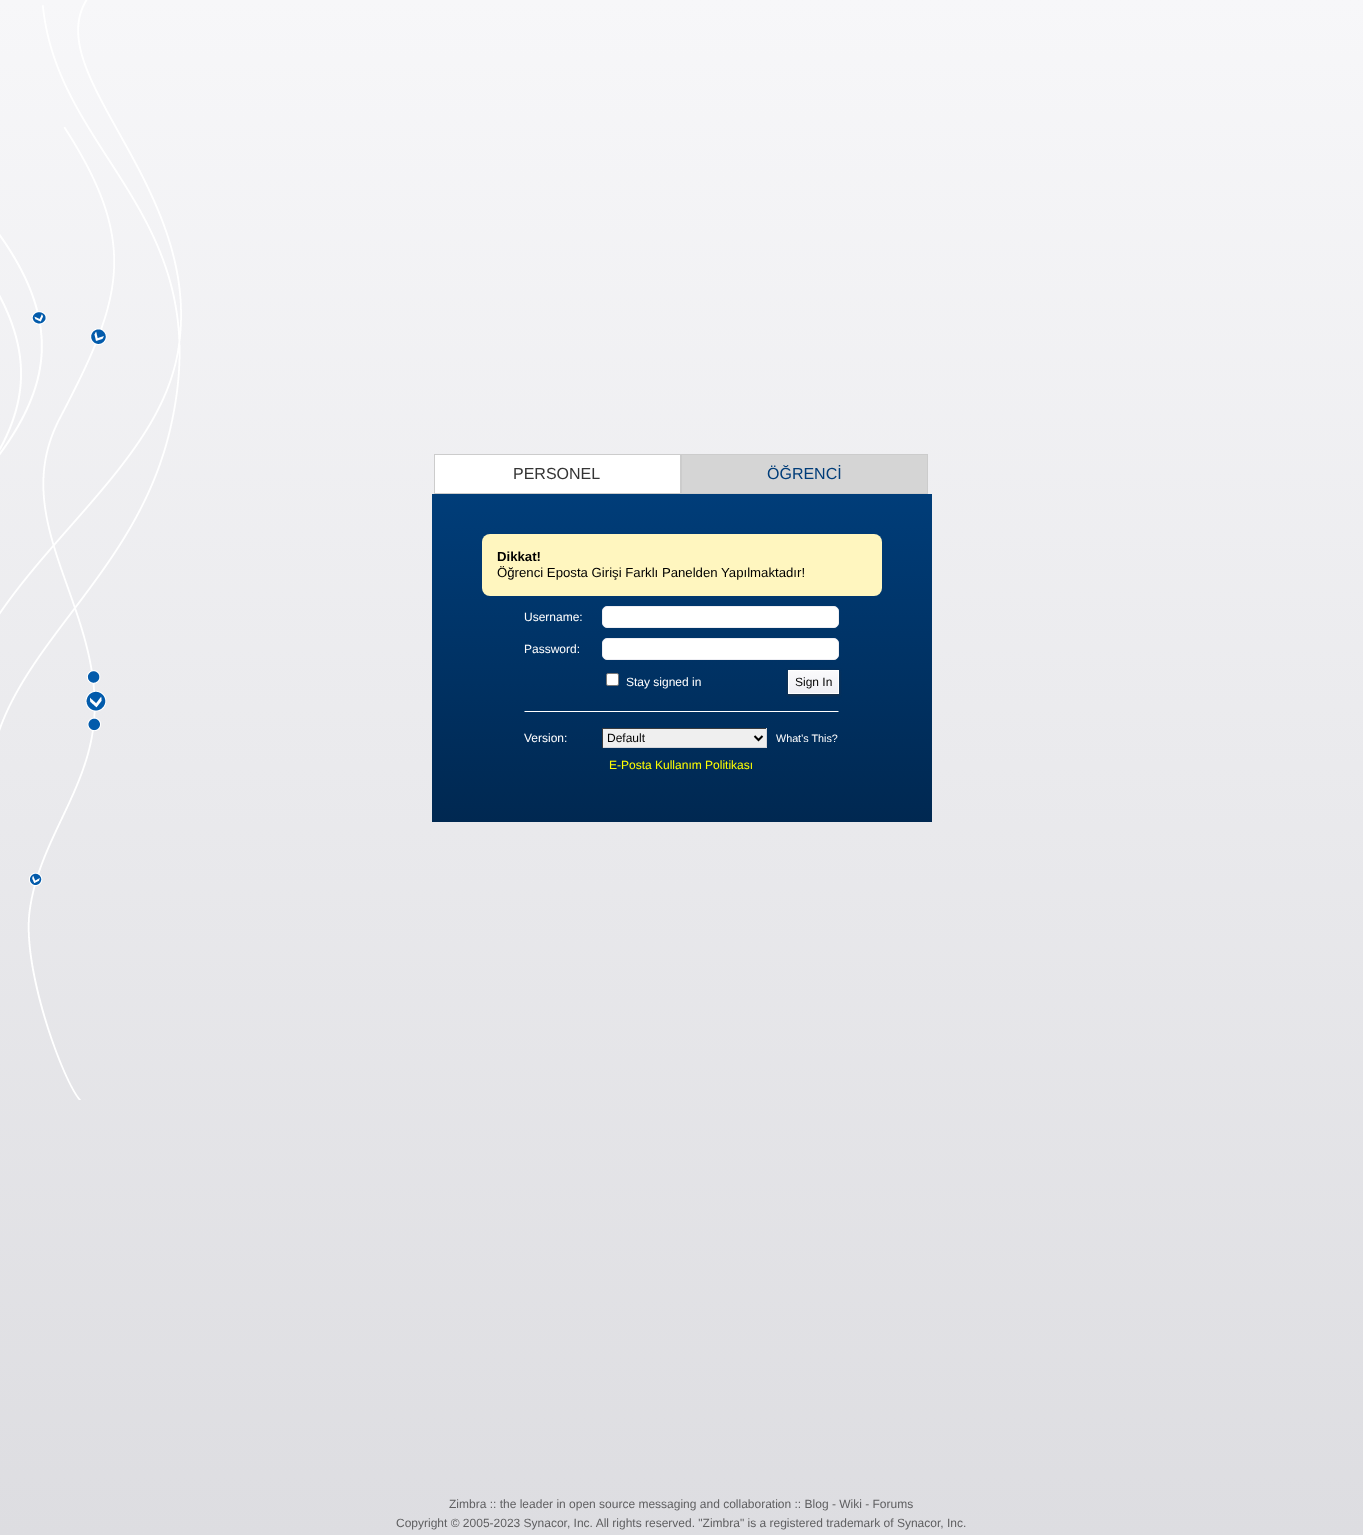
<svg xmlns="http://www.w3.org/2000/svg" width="1363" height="1535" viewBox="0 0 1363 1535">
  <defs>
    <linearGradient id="g1" gradientUnits="userSpaceOnUse" x1="681" y1="0" x2="682" y2="1535"><stop offset="0" stop-color="rgb(247,247,249)"/><stop offset="1" stop-color="rgb(221,221,225)"/></linearGradient>
    <linearGradient id="g2" gradientUnits="userSpaceOnUse" x1="682" y1="494" x2="682" y2="822"><stop offset="0" stop-color="rgb(0,61,121)"/><stop offset="1" stop-color="rgb(0,40,81)"/></linearGradient>
    <linearGradient id="g3" gradientUnits="userSpaceOnUse" x1="814" y1="671" x2="814" y2="693"><stop offset="0" stop-color="rgb(250,250,252)"/><stop offset="1" stop-color="rgb(239,239,244)"/></linearGradient>
  </defs>
  <rect width="100%" height="100%" fill="rgb(255,255,255)"/>
  <rect x="0" y="0" width="1363" height="1535" fill="url(#g1)"/>
  <image x="0" y="0" width="182" height="1100" href="pic1.png"/>
  <rect x="434.5" y="454.5" width="246" height="39" fill="rgb(255,255,255)" stroke="rgb(204,204,204)"/>
  <text x="513" y="479" font-family="Liberation Sans" font-size="16" fill="rgb(53,53,53)">PERSONEL</text>
  <rect x="681.5" y="454.5" width="246" height="39" fill="rgb(213,213,213)" stroke="rgb(204,204,204)"/>
  <text x="767" y="479" font-family="Liberation Sans" font-size="16" fill="rgb(0,61,121)">ÖĞRENCİ</text>
  <rect x="432" y="494" width="500" height="328" fill="url(#g2)"/>
  <rect x="482" y="534" width="400" height="62" rx="8" fill="rgb(255,246,191)"/>
  <text x="497" y="561" font-family="Liberation Sans" font-size="13.2" font-weight="bold" fill="rgb(0,0,0)">Dikkat!</text>
  <text x="497" y="577" font-family="Liberation Sans" font-size="13.2" fill="rgb(0,0,0)">Öğrenci Eposta Girişi Farklı Panelden Yapılmaktadır!</text>
  <text x="524" y="621" font-family="Liberation Sans" font-size="12" fill="rgb(255,255,255)">Username:</text>
  <rect x="602.5" y="606.5" width="236" height="21" rx="4.5" fill="rgb(255,255,255)" stroke="rgb(238,238,243)"/>
  <text x="524" y="653" font-family="Liberation Sans" font-size="12" fill="rgb(255,255,255)">Password:</text>
  <rect x="602.5" y="638.5" width="236" height="21" rx="4.5" fill="rgb(255,255,255)" stroke="rgb(238,238,243)"/>
  <rect x="606.5" y="673.5" width="12" height="12" rx="1.5" fill="rgb(255,255,255)" stroke="rgb(118,118,118)"/>
  <text x="626" y="686" font-family="Liberation Sans" font-size="12" fill="rgb(255,255,255)">Stay signed in</text>
  <rect x="788" y="671" width="51" height="24" fill="rgba(50,50,50,0.75)" filter="blur(1.5px)"/>
  <rect x="789" y="671" width="49" height="22" fill="url(#g3)"/>
  <rect x="788.5" y="670.5" width="50" height="23" fill="none" stroke="rgb(255,255,255)"/>
  <text x="795" y="686" font-family="Liberation Sans" font-size="12" fill="rgb(0,0,0)">Sign In</text>
  <path d="M839 712H524L525 711H838Z" fill="rgb(255,255,255)"/>
  <text x="524" y="742" font-family="Liberation Sans" font-size="12" fill="rgb(255,255,255)">Version:</text>
  <rect x="603" y="729" width="163" height="18" fill="rgb(239,239,239)"/>
  <rect x="602" y="728" width="165" height="1" fill="rgb(59,59,60)"/>
  <rect x="766" y="728" width="1" height="20" fill="rgb(214,214,218)"/>
  <rect x="602" y="747" width="165" height="1" fill="rgb(214,214,218)"/>
  <rect x="602" y="728" width="1" height="20" fill="rgb(59,59,60)"/>
  <path d="M754.5 736L758.5 740L762.5 736" fill="none" stroke="rgb(0,0,0)" stroke-width="2"/>
  <text x="607" y="742" font-family="Liberation Sans" font-size="12" fill="rgb(0,0,0)">Default</text>
  <text x="776" y="742" font-family="Liberation Sans" font-size="10.75" fill="rgb(255,255,255)">What’s This?</text>
  <text x="609" y="769" font-family="Liberation Sans" font-size="12" fill="rgb(255,255,0)">E-Posta Kullanım Politikası</text>
  <g font-family="Liberation Sans" font-size="12" fill="rgb(95,95,97)">
    <text x="449" y="1508">Zimbra :: the leader in open source messaging and collaboration :: Blog - Wiki - Forums</text>
    <text x="396" y="1527">Copyright © 2005-2023 Synacor, Inc. All rights reserved. "Zimbra" is a registered trademark of Synacor, Inc.</text>
  </g>
</svg>
